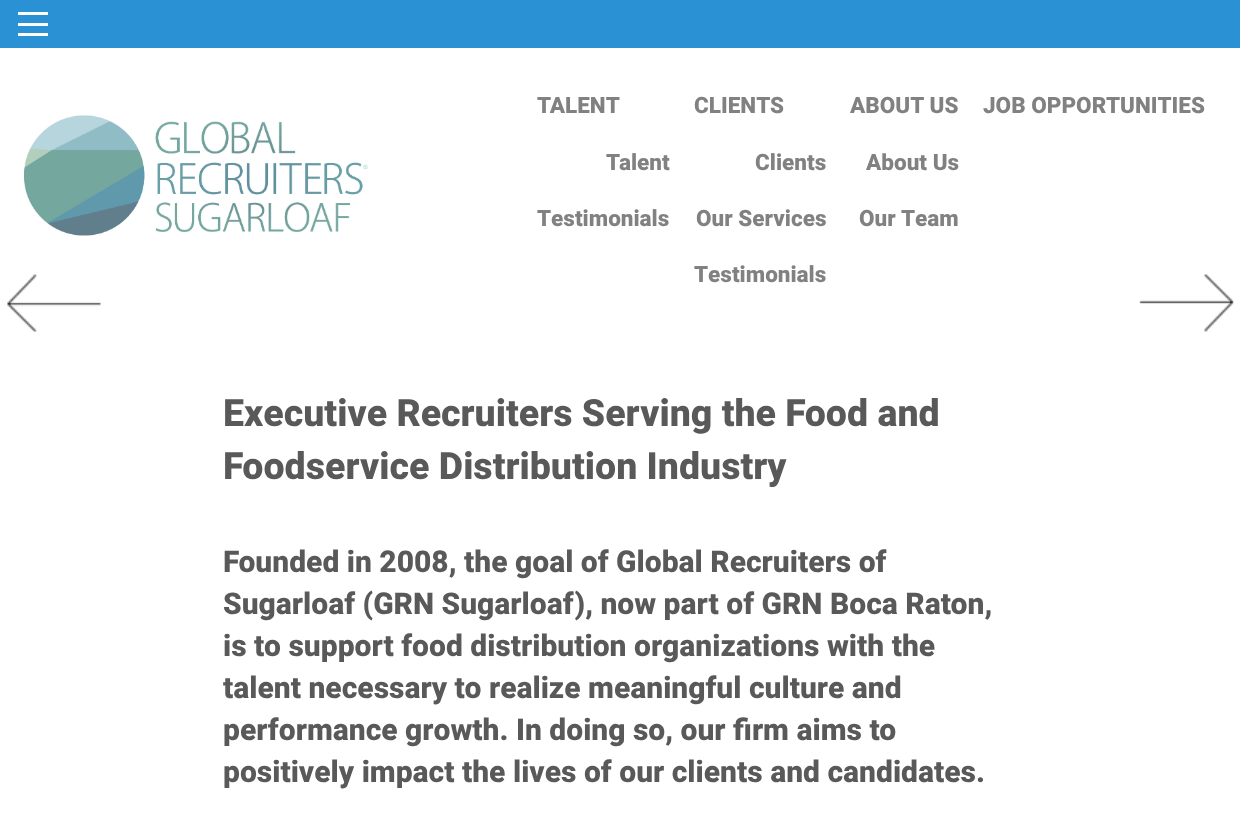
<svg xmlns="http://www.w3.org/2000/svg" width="1240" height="837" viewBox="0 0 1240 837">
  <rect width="100%" height="100%" fill="rgb(255,255,255)"/>
  <rect x="0" y="0" width="1240" height="48" fill="rgb(42,146,212)"/>
  <rect x="18" y="33" width="30" height="3" fill="rgb(254,254,254)"/>
  <rect x="18" y="23" width="30" height="3" fill="rgb(254,254,254)"/>
  <rect x="18" y="12" width="30" height="3" fill="rgb(254,254,254)"/>
  <image x="24" y="115" width="344" height="121" href="pic1.png"/>
  <g font-family="Heebo" font-size="22.5" font-weight="800" fill="rgb(129,129,130)">
    <text x="537" y="113">TALENT</text>
    <text x="606" y="170">Talent</text>
    <text x="537" y="226">Testimonials</text>
    <text x="694" y="113">CLIENTS</text>
    <text x="755" y="170">Clients</text>
    <text x="696" y="226">Our Services</text>
    <text x="694" y="282">Testimonials</text>
    <text x="850" y="113">ABOUT US</text>
    <text x="866" y="170">About Us</text>
    <text x="859" y="226">Our Team</text>
    <text x="983" y="113">JOB OPPORTUNITIES</text>
  </g>
  <image x="7" y="274" width="94" height="58" href="pic2.png"/>
  <image x="1139" y="274" width="95" height="58" href="pic3.png"/>
  <g font-family="Heebo" font-size="37.5" font-weight="800" fill="rgb(89,89,89)">
    <text>
      <tspan x="223" y="426">Executive Recruiters Serving the Food and</tspan>
      <tspan x="223" y="479">Foodservice Distribution Industry</tspan>
    </text>
  </g>
  <g font-family="Heebo" font-size="30" font-weight="800" fill="rgb(89,89,89)">
    <text>
      <tspan x="223" y="572">Founded in 2008, the goal of Global Recruiters of</tspan>
      <tspan x="223" y="614">Sugarloaf (GRN Sugarloaf), now part of GRN Boca Raton,</tspan>
      <tspan x="223" y="656">is to support food distribution organizations with the</tspan>
      <tspan x="223" y="698">talent necessary to realize meaningful culture and</tspan>
      <tspan x="223" y="740">performance growth. In doing so, our firm aims to</tspan>
      <tspan x="223" y="782">positively impact the lives of our clients and candidates.</tspan>
    </text>
  </g>
</svg>
